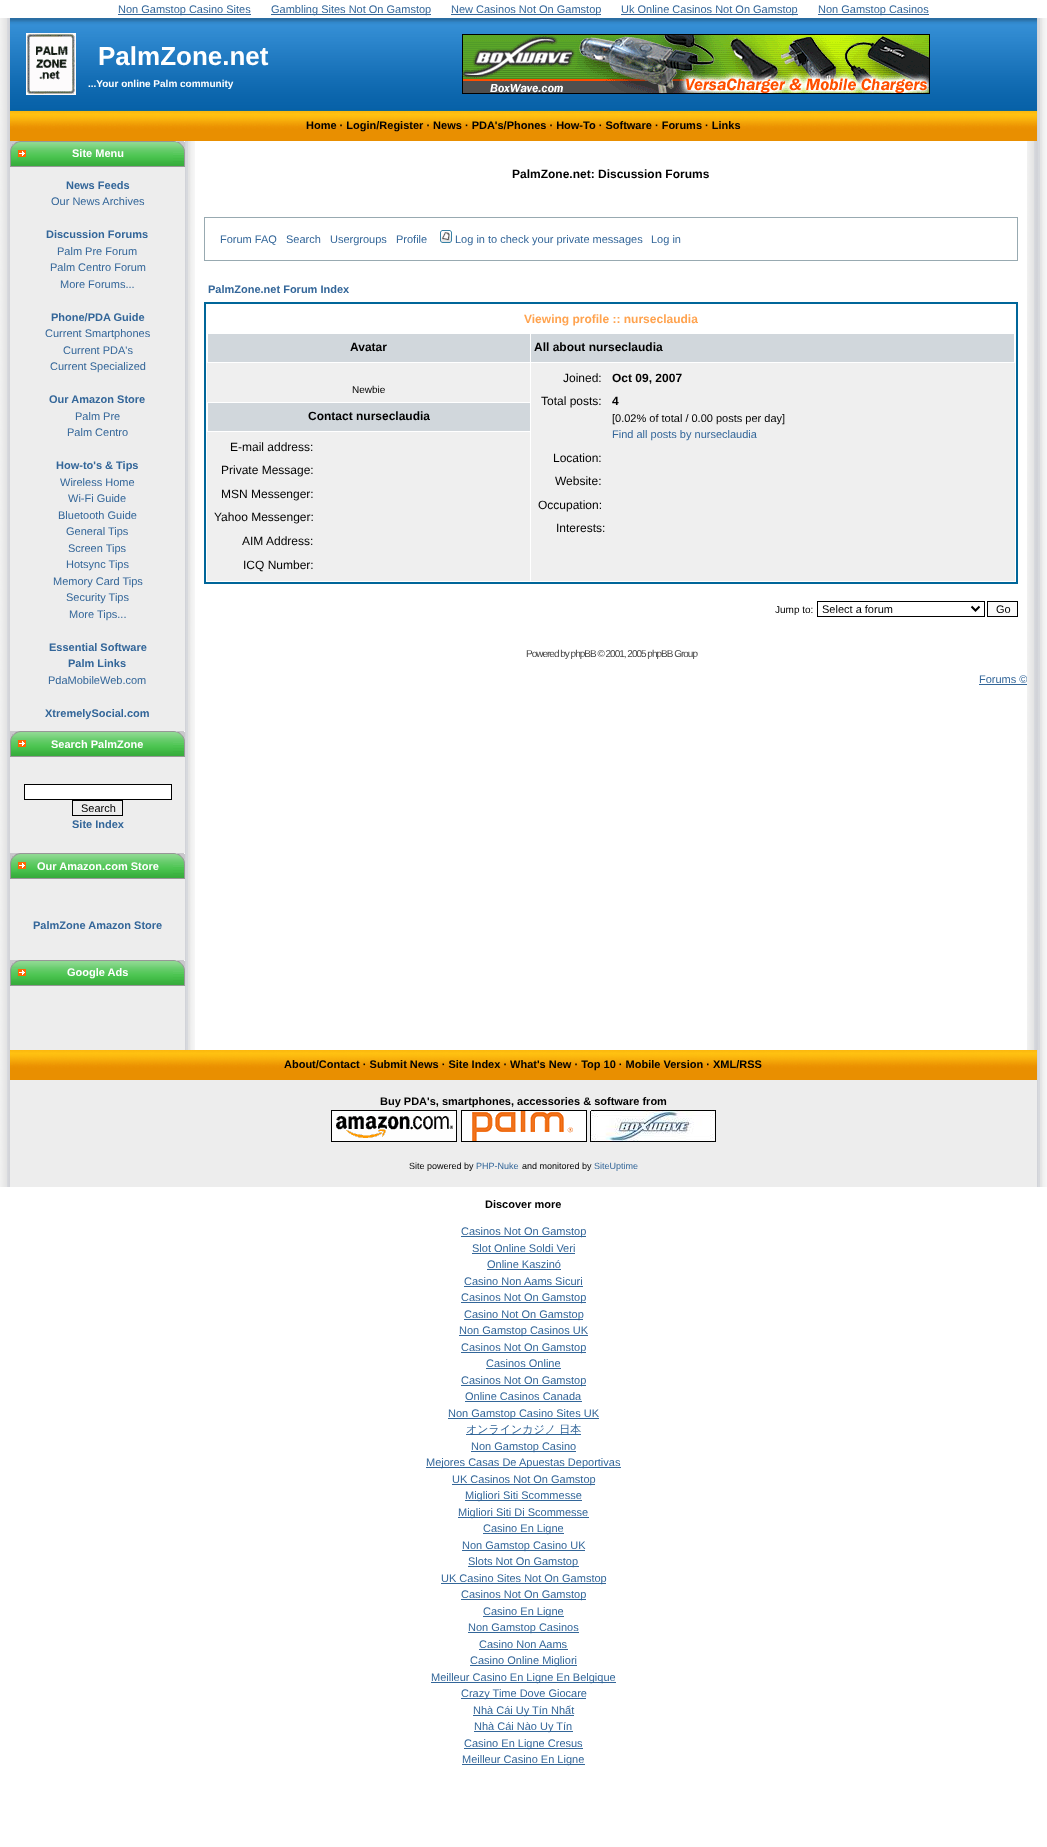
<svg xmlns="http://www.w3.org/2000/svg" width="1047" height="1847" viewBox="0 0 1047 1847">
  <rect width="100%" height="100%" fill="rgb(255,255,255)"/>
  <rect x="118" y="14" width="133" height="1" fill="rgb(51,102,153)"/>
  <text x="118" y="13" font-family="Liberation Sans" font-size="11" fill="rgb(51,102,153)">Non Gamstop Casino Sites</text>
  <rect x="271" y="14" width="160" height="1" fill="rgb(51,102,153)"/>
  <text x="271" y="13" font-family="Liberation Sans" font-size="11" fill="rgb(51,102,153)">Gambling Sites Not On Gamstop</text>
  <rect x="451" y="14" width="150" height="1" fill="rgb(51,102,153)"/>
  <text x="451" y="13" font-family="Liberation Sans" font-size="11" fill="rgb(51,102,153)">New Casinos Not On Gamstop</text>
  <rect x="621" y="14" width="177" height="1" fill="rgb(51,102,153)"/>
  <text x="621" y="13" font-family="Liberation Sans" font-size="11" fill="rgb(51,102,153)">Uk Online Casinos Not On Gamstop</text>
  <rect x="818" y="14" width="111" height="1" fill="rgb(51,102,153)"/>
  <text x="818" y="13" font-family="Liberation Sans" font-size="11" fill="rgb(51,102,153)">Non Gamstop Casinos</text>
  <image x="0" y="18" width="10" height="1169" href="pic1.png"/>
  <image x="10" y="18" width="72" height="93" href="pic2.png"/>
  <image x="26" y="33" width="50" height="62" href="pic3.png"/>
  <image x="82" y="18" width="273" height="93" href="pic4.png"/>
  <text x="98" y="65" font-family="Liberation Sans" font-size="26" font-weight="bold" fill="rgb(255,255,255)">PalmZone.net</text>
  <text x="88" y="87" font-family="Liberation Sans" font-size="10" font-weight="bold" fill="rgb(255,255,255)">...Your online Palm community</text>
  <image x="355" y="18" width="682" height="93" href="pic5.png"/>
  <image x="462" y="34" width="468" height="60" href="pic6.png"/>
  <image x="10" y="111" width="103" height="30" href="pic7.png"/>
  <image x="113" y="111" width="821" height="30" href="pic8.png"/>
  <text x="306" y="129" font-family="Liberation Sans" font-size="11" font-weight="bold" fill="rgb(0,0,0)">Home · Login/Register · News · PDA's/Phones · How-To · Software · Forums · Links</text>
  <image x="934" y="111" width="103" height="30" href="pic7.png"/>
  <rect x="10" y="167" width="175" height="883" fill="rgb(237,237,237)"/>
  <image x="10" y="141" width="175" height="26" href="pic9.png"/>
  <text x="72" y="157" font-family="Liberation Sans" font-size="11" font-weight="bold" fill="rgb(255,255,255)">Site Menu</text>
  <text x="66" y="189" font-family="Liberation Sans" font-size="11" font-weight="bold" fill="rgb(51,102,153)">News Feeds</text>
  <text x="51" y="205" font-family="Liberation Sans" font-size="11" fill="rgb(51,102,153)">Our News Archives</text>
  <text x="46" y="238" font-family="Liberation Sans" font-size="11" font-weight="bold" fill="rgb(51,102,153)">Discussion Forums</text>
  <g font-family="Liberation Sans" font-size="11" fill="rgb(51,102,153)">
    <text x="57" y="255">Palm Pre Forum</text>
    <text x="50" y="271">Palm Centro Forum</text>
    <text x="60" y="288">More Forums...</text>
  </g>
  <text x="51" y="321" font-family="Liberation Sans" font-size="11" font-weight="bold" fill="rgb(51,102,153)">Phone/PDA Guide</text>
  <g font-family="Liberation Sans" font-size="11" fill="rgb(51,102,153)">
    <text x="45" y="337">Current Smartphones</text>
    <text x="63" y="354">Current PDA's</text>
    <text x="50" y="370">Current Specialized</text>
  </g>
  <text x="49" y="403" font-family="Liberation Sans" font-size="11" font-weight="bold" fill="rgb(51,102,153)">Our Amazon Store</text>
  <g font-family="Liberation Sans" font-size="11" fill="rgb(51,102,153)">
    <text x="75" y="420">Palm Pre</text>
    <text x="67" y="436">Palm Centro</text>
  </g>
  <text x="56" y="469" font-family="Liberation Sans" font-size="11" font-weight="bold" fill="rgb(51,102,153)">How-to's &amp; Tips</text>
  <g font-family="Liberation Sans" font-size="11" fill="rgb(51,102,153)">
    <text x="60" y="486">Wireless Home</text>
    <text x="68" y="502">Wi-Fi Guide</text>
    <text x="58" y="519">Bluetooth Guide</text>
    <text x="66" y="535">General Tips</text>
    <text x="68" y="552">Screen Tips</text>
    <text x="66" y="568">Hotsync Tips</text>
    <text x="53" y="585">Memory Card Tips</text>
    <text x="66" y="601">Security Tips</text>
    <text x="69" y="618">More Tips...</text>
  </g>
  <g font-family="Liberation Sans" font-size="11" font-weight="bold" fill="rgb(51,102,153)">
    <text x="49" y="651">Essential Software</text>
    <text x="68" y="667">Palm Links</text>
  </g>
  <text x="48" y="684" font-family="Liberation Sans" font-size="11" fill="rgb(51,102,153)">PdaMobileWeb.com</text>
  <text x="45" y="717" font-family="Liberation Sans" font-size="11" font-weight="bold" fill="rgb(51,102,153)">XtremelySocial.com</text>
  <image x="10" y="731" width="175" height="26" href="pic9.png"/>
  <text x="51" y="748" font-family="Liberation Sans" font-size="11" font-weight="bold" fill="rgb(255,255,255)">Search PalmZone</text>
  <rect x="24.5" y="784.5" width="147" height="15" fill="rgb(255,255,255)" stroke="rgb(0,0,0)"/>
  <rect x="72.5" y="800.5" width="50" height="15" fill="none" stroke="rgb(0,0,0)"/>
  <text x="81" y="812" font-family="Liberation Sans" font-size="11" fill="rgb(0,0,0)">Search</text>
  <text x="72" y="828" font-family="Liberation Sans" font-size="11" font-weight="bold" fill="rgb(51,102,153)">Site Index</text>
  <image x="10" y="853" width="175" height="26" href="pic9.png"/>
  <text x="37" y="870" font-family="Liberation Sans" font-size="11" font-weight="bold" fill="rgb(255,255,255)">Our Amazon.com Store</text>
  <text x="33" y="929" font-family="Liberation Sans" font-size="11" font-weight="bold" fill="rgb(51,102,153)">PalmZone Amazon Store</text>
  <image x="10" y="960" width="175" height="26" href="pic9.png"/>
  <text x="67" y="976" font-family="Liberation Sans" font-size="11" font-weight="bold" fill="rgb(255,255,255)">Google Ads</text>
  <image x="185" y="141" width="10" height="909" href="pic10.png"/>
  <text x="512" y="178" font-family="Liberation Sans" font-size="12" font-weight="bold" fill="rgb(0,0,0)">PalmZone.net: Discussion Forums</text>
  <rect x="204.5" y="217.5" width="813" height="43" fill="none" stroke="rgb(152,170,177)"/>
  <g font-family="Liberation Sans" font-size="11" fill="rgb(51,102,153)">
    <text x="220" y="243">Forum FAQ</text>
    <text x="286" y="243">Search</text>
    <text x="330" y="243">Usergroups</text>
    <text x="396" y="243">Profile</text>
  </g>
  <image x="440" y="230" width="12" height="13" href="pic11.png"/>
  <g font-family="Liberation Sans" font-size="11" fill="rgb(51,102,153)">
    <text x="455" y="243">Log in to check your private messages</text>
    <text x="651" y="243">Log in</text>
  </g>
  <text x="208" y="293" font-family="Liberation Sans" font-size="11" font-weight="bold" fill="rgb(51,102,153)">PalmZone.net Forum Index</text>
  <rect x="205" y="303" width="812" height="280" fill="none" stroke="rgb(0,102,153)" stroke-width="2"/>
  <text x="524" y="323" font-family="Liberation Sans" font-size="12" font-weight="bold" fill="rgb(255,163,79)">Viewing profile :: nurseclaudia</text>
  <rect x="208" y="334" width="322" height="28" fill="rgb(209,215,220)"/>
  <text x="350" y="351" font-family="Liberation Sans" font-size="12" font-weight="bold" fill="rgb(0,0,0)">Avatar</text>
  <rect x="531" y="334" width="483" height="28" fill="rgb(209,215,220)"/>
  <text x="534" y="351" font-family="Liberation Sans" font-size="12" font-weight="bold" fill="rgb(0,0,0)">All about nurseclaudia</text>
  <rect x="207" y="363" width="323" height="39" fill="rgb(239,239,239)"/>
  <text x="352" y="393" font-family="Liberation Sans" font-size="10" fill="rgb(0,0,0)">Newbie</text>
  <rect x="531" y="363" width="484" height="218" fill="rgb(239,239,239)"/>
  <text x="563" y="382" font-family="Liberation Sans" font-size="12" fill="rgb(0,0,0)">Joined:</text>
  <text x="612" y="382" font-family="Liberation Sans" font-size="12" font-weight="bold" fill="rgb(0,0,0)">Oct 09, 2007</text>
  <text x="541" y="405" font-family="Liberation Sans" font-size="12" fill="rgb(0,0,0)">Total posts:</text>
  <text x="612" y="405" font-family="Liberation Sans" font-size="12" font-weight="bold" fill="rgb(0,0,0)">4</text>
  <text x="612" y="422" font-family="Liberation Sans" font-size="11" fill="rgb(0,0,0)">[0.02% of total / 0.00 posts per day]</text>
  <text x="612" y="438" font-family="Liberation Sans" font-size="11" fill="rgb(51,102,153)">Find all posts by nurseclaudia</text>
  <g font-family="Liberation Sans" font-size="12" fill="rgb(0,0,0)">
    <text x="553" y="462">Location:</text>
    <text x="555" y="485">Website:</text>
    <text x="538" y="509">Occupation:</text>
    <text x="556" y="532">Interests:</text>
  </g>
  <rect x="208" y="403" width="322" height="28" fill="rgb(209,215,220)"/>
  <text x="308" y="420" font-family="Liberation Sans" font-size="12" font-weight="bold" fill="rgb(0,0,0)">Contact nurseclaudia</text>
  <rect x="207" y="432" width="323" height="149" fill="rgb(239,239,239)"/>
  <g font-family="Liberation Sans" font-size="12" fill="rgb(0,0,0)">
    <text x="230" y="451">E-mail address:</text>
    <text x="221" y="474">Private Message:</text>
    <text x="221" y="498">MSN Messenger:</text>
    <text x="214" y="521">Yahoo Messenger:</text>
    <text x="242" y="545">AIM Address:</text>
    <text x="243" y="569">ICQ Number:</text>
  </g>
  <text x="775" y="613" font-family="Liberation Sans" font-size="10" fill="rgb(0,0,0)">Jump to:</text>
  <rect x="817.5" y="601.5" width="167" height="15" fill="none" stroke="rgb(0,0,0)"/>
  <path d="M971.5 606.5L975.5 610.5L979.5 606.5" fill="none" stroke="rgb(0,0,0)" stroke-width="2"/>
  <text x="822" y="613" font-family="Liberation Sans" font-size="11" fill="rgb(0,0,0)">Select a forum</text>
  <rect x="987.5" y="601.5" width="30" height="15" fill="rgb(250,250,250)" stroke="rgb(0,0,0)"/>
  <text x="996" y="613" font-family="Liberation Sans" font-size="11" fill="rgb(0,0,0)">Go</text>
  <text x="526" y="657" font-family="Liberation Sans" font-size="10" letter-spacing="-1" fill="rgb(68,68,68)">Powered by phpBB © 2001, 2005 phpBB Group</text>
  <text x="979" y="683" font-family="Liberation Sans" font-size="11" fill="rgb(51,102,153)">Forums ©</text>
  <rect x="979" y="684" width="48" height="1" fill="rgb(51,102,153)"/>
  <image x="1027" y="141" width="10" height="909" href="pic12.png"/>
  <rect x="10" y="1080" width="1027" height="107" fill="rgb(237,237,237)"/>
  <image x="10" y="1050" width="1027" height="30" href="pic13.png"/>
  <g font-family="Liberation Sans" font-size="11" font-weight="bold" fill="rgb(0,0,0)">
    <text x="284" y="1068">About/Contact · Submit News · Site Index · What's New · Top 10 · Mobile Version · XML/RSS</text>
    <text x="380" y="1105">Buy PDA's, smartphones, accessories &amp; software from</text>
  </g>
  <image x="331" y="1110" width="126" height="32" href="pic14.png"/>
  <image x="461" y="1110" width="126" height="32" href="pic15.png"/>
  <image x="590" y="1110" width="126" height="32" href="pic16.png"/>
  <text x="409" y="1169" font-family="Liberation Sans" font-size="9" fill="rgb(0,0,0)">Site powered by</text>
  <text x="476" y="1169" font-family="Liberation Sans" font-size="9" fill="rgb(51,102,153)">PHP-Nuke</text>
  <text x="522" y="1169" font-family="Liberation Sans" font-size="9" fill="rgb(0,0,0)">and monitored by</text>
  <text x="594" y="1169" font-family="Liberation Sans" font-size="9" fill="rgb(51,102,153)">SiteUptime</text>
  <image x="1037" y="18" width="10" height="1169" href="pic17.png"/>
  <text x="485" y="1208" font-family="Liberation Sans" font-size="11" font-weight="bold" fill="rgb(0,0,0)">Discover more</text>
  <rect x="461" y="1236" width="125" height="1" fill="rgb(51,102,153)"/>
  <g font-family="Liberation Sans" font-size="11" fill="rgb(51,102,153)">
    <text x="461" y="1235">Casinos Not On Gamstop</text>
    <text x="472" y="1252">Slot Online Soldi Veri</text>
  </g>
  <rect x="472" y="1253" width="103" height="1" fill="rgb(51,102,153)"/>
  <text x="487" y="1268" font-family="Liberation Sans" font-size="11" fill="rgb(51,102,153)">Online Kaszinó</text>
  <rect x="487" y="1269" width="74" height="1" fill="rgb(51,102,153)"/>
  <text x="464" y="1285" font-family="Liberation Sans" font-size="11" fill="rgb(51,102,153)">Casino Non Aams Sicuri</text>
  <rect x="464" y="1286" width="119" height="1" fill="rgb(51,102,153)"/>
  <rect x="461" y="1302" width="125" height="1" fill="rgb(51,102,153)"/>
  <text x="461" y="1301" font-family="Liberation Sans" font-size="11" fill="rgb(51,102,153)">Casinos Not On Gamstop</text>
  <rect x="464" y="1319" width="119" height="1" fill="rgb(51,102,153)"/>
  <text x="464" y="1318" font-family="Liberation Sans" font-size="11" fill="rgb(51,102,153)">Casino Not On Gamstop</text>
  <rect x="459" y="1335" width="129" height="1" fill="rgb(51,102,153)"/>
  <text x="459" y="1334" font-family="Liberation Sans" font-size="11" fill="rgb(51,102,153)">Non Gamstop Casinos UK</text>
  <rect x="461" y="1352" width="125" height="1" fill="rgb(51,102,153)"/>
  <g font-family="Liberation Sans" font-size="11" fill="rgb(51,102,153)">
    <text x="461" y="1351">Casinos Not On Gamstop</text>
    <text x="486" y="1367">Casinos Online</text>
  </g>
  <rect x="486" y="1368" width="75" height="1" fill="rgb(51,102,153)"/>
  <rect x="461" y="1385" width="125" height="1" fill="rgb(51,102,153)"/>
  <g font-family="Liberation Sans" font-size="11" fill="rgb(51,102,153)">
    <text x="461" y="1384">Casinos Not On Gamstop</text>
    <text x="465" y="1400">Online Casinos Canada</text>
  </g>
  <rect x="465" y="1401" width="117" height="1" fill="rgb(51,102,153)"/>
  <rect x="448" y="1418" width="151" height="1" fill="rgb(51,102,153)"/>
  <text x="448" y="1417" font-family="Liberation Sans" font-size="11" fill="rgb(51,102,153)">Non Gamstop Casino Sites UK</text>
  <rect x="466" y="1434" width="115" height="1" fill="rgb(51,102,153)"/>
  <text x="466" y="1433" font-family="WenQuanYi Zen Hei" font-size="11" font-weight="500" fill="rgb(51,102,153)">オンラインカジノ 日本</text>
  <rect x="471" y="1451" width="105" height="1" fill="rgb(51,102,153)"/>
  <text x="471" y="1450" font-family="Liberation Sans" font-size="11" fill="rgb(51,102,153)">Non Gamstop Casino</text>
  <rect x="426" y="1467" width="195" height="1" fill="rgb(51,102,153)"/>
  <text x="426" y="1466" font-family="Liberation Sans" font-size="11" fill="rgb(51,102,153)">Mejores Casas De Apuestas Deportivas</text>
  <rect x="452" y="1484" width="143" height="1" fill="rgb(51,102,153)"/>
  <text x="452" y="1483" font-family="Liberation Sans" font-size="11" fill="rgb(51,102,153)">UK Casinos Not On Gamstop</text>
  <rect x="465" y="1500" width="117" height="1" fill="rgb(51,102,153)"/>
  <text x="465" y="1499" font-family="Liberation Sans" font-size="11" fill="rgb(51,102,153)">Migliori Siti Scommesse</text>
  <rect x="458" y="1517" width="131" height="1" fill="rgb(51,102,153)"/>
  <text x="458" y="1516" font-family="Liberation Sans" font-size="11" fill="rgb(51,102,153)">Migliori Siti Di Scommesse</text>
  <rect x="483" y="1533" width="81" height="1" fill="rgb(51,102,153)"/>
  <text x="483" y="1532" font-family="Liberation Sans" font-size="11" fill="rgb(51,102,153)">Casino En Ligne</text>
  <rect x="462" y="1550" width="123" height="1" fill="rgb(51,102,153)"/>
  <text x="462" y="1549" font-family="Liberation Sans" font-size="11" fill="rgb(51,102,153)">Non Gamstop Casino UK</text>
  <rect x="468" y="1566" width="111" height="1" fill="rgb(51,102,153)"/>
  <text x="468" y="1565" font-family="Liberation Sans" font-size="11" fill="rgb(51,102,153)">Slots Not On Gamstop</text>
  <rect x="441" y="1583" width="165" height="1" fill="rgb(51,102,153)"/>
  <text x="441" y="1582" font-family="Liberation Sans" font-size="11" fill="rgb(51,102,153)">UK Casino Sites Not On Gamstop</text>
  <rect x="461" y="1599" width="125" height="1" fill="rgb(51,102,153)"/>
  <text x="461" y="1598" font-family="Liberation Sans" font-size="11" fill="rgb(51,102,153)">Casinos Not On Gamstop</text>
  <rect x="483" y="1616" width="81" height="1" fill="rgb(51,102,153)"/>
  <text x="483" y="1615" font-family="Liberation Sans" font-size="11" fill="rgb(51,102,153)">Casino En Ligne</text>
  <rect x="468" y="1632" width="111" height="1" fill="rgb(51,102,153)"/>
  <g font-family="Liberation Sans" font-size="11" fill="rgb(51,102,153)">
    <text x="468" y="1631">Non Gamstop Casinos</text>
    <text x="479" y="1648">Casino Non Aams</text>
  </g>
  <rect x="479" y="1649" width="89" height="1" fill="rgb(51,102,153)"/>
  <rect x="470" y="1665" width="107" height="1" fill="rgb(51,102,153)"/>
  <text x="470" y="1664" font-family="Liberation Sans" font-size="11" fill="rgb(51,102,153)">Casino Online Migliori</text>
  <rect x="431" y="1682" width="185" height="1" fill="rgb(51,102,153)"/>
  <text x="431" y="1681" font-family="Liberation Sans" font-size="11" fill="rgb(51,102,153)">Meilleur Casino En Ligne En Belgique</text>
  <rect x="461" y="1698" width="125" height="1" fill="rgb(51,102,153)"/>
  <text x="461" y="1697" font-family="Liberation Sans" font-size="11" fill="rgb(51,102,153)">Crazy Time Dove Giocare</text>
  <rect x="473" y="1715" width="101" height="1" fill="rgb(51,102,153)"/>
  <text x="473" y="1714" font-family="Liberation Sans" font-size="11" fill="rgb(51,102,153)">Nhà Cái Uy Tín Nhất</text>
  <rect x="474" y="1731" width="99" height="1" fill="rgb(51,102,153)"/>
  <text x="474" y="1730" font-family="Liberation Sans" font-size="11" fill="rgb(51,102,153)">Nhà Cái Nào Uy Tín</text>
  <rect x="464" y="1748" width="119" height="1" fill="rgb(51,102,153)"/>
  <text x="464" y="1747" font-family="Liberation Sans" font-size="11" fill="rgb(51,102,153)">Casino En Ligne Cresus</text>
  <rect x="462" y="1764" width="123" height="1" fill="rgb(51,102,153)"/>
  <text x="462" y="1763" font-family="Liberation Sans" font-size="11" fill="rgb(51,102,153)">Meilleur Casino En Ligne</text>
</svg>
